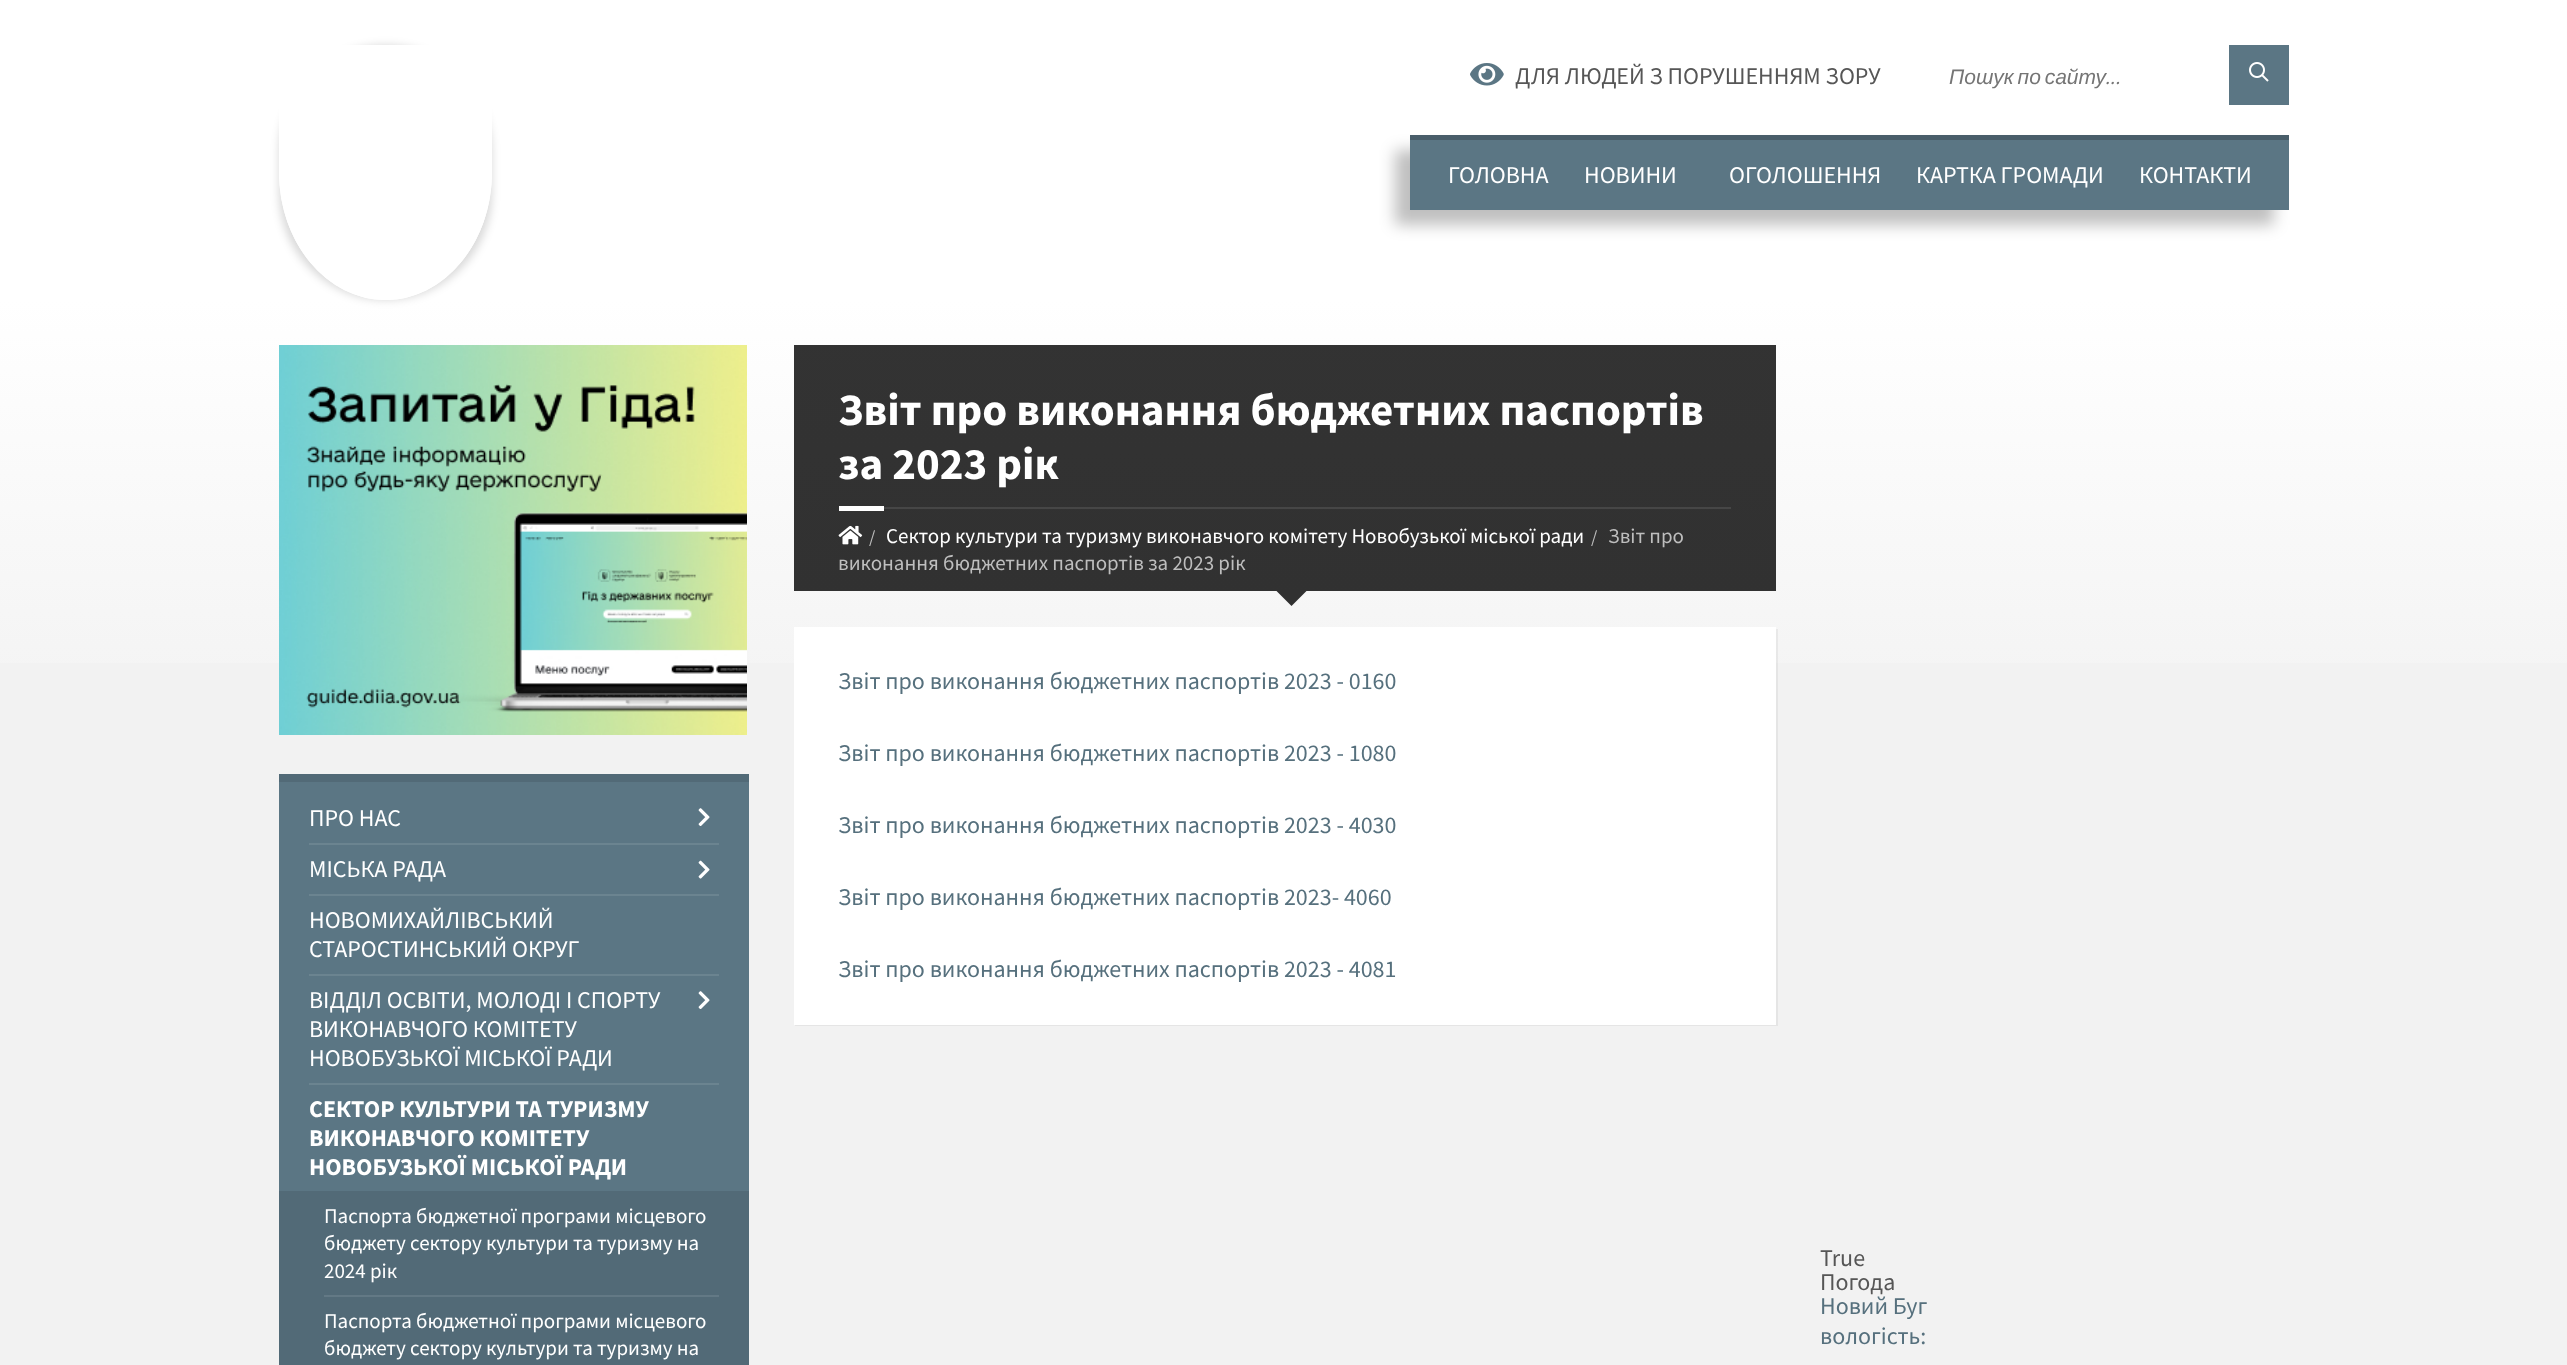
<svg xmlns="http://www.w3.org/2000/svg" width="2567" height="1365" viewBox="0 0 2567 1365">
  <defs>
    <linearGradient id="g1" gradientUnits="userSpaceOnUse" x1="1284" y1="300" x2="1284" y2="750"><stop offset="0" stop-color="rgb(255,255,255)"/><stop offset="1" stop-color="rgb(242,242,242)"/></linearGradient>
    <linearGradient id="g2" gradientUnits="userSpaceOnUse" x1="1284" y1="300" x2="1284" y2="750"><stop offset="0" stop-color="rgb(51,51,51)"/><stop offset="1" stop-color="rgb(48,48,48)"/></linearGradient>
  </defs>
  <rect width="100%" height="100%" fill="rgb(242,242,242)"/>
  <rect x="0" y="0" width="2567" height="300" fill="rgb(255,255,255)"/>
  <rect x="0" y="300" width="2567" height="363" fill="url(#g1)"/>
  <rect x="794" y="345" width="982" height="246" fill="url(#g2)"/>
  <rect x="279" y="45" width="213" height="255" rx="106.5" fill="rgba(0,0,0,0.15)" filter="blur(4.5px)"/>
  <path d="M309 45H462C479 45 492 58 492 75V172C492 243 444 300 386 300C327 300 279 243 279 172V75C279 58 292 45 309 45Z" fill="rgb(255,255,255)"/>
  <path d="M309 46.5H462C477.5 46.5 490.5 59.5 490.5 75V172.5C490.5 242 443.5 298.5 385.5 298.5C327.5 298.5 280.5 242 280.5 172.5V75C280.5 59.5 293.5 46.5 309 46.5Z" fill="none" stroke="rgb(255,255,255)" stroke-width="3"/>
  <image x="1470" y="63" width="34" height="23" href="pic1.png"/>
  <text x="1515" y="84" font-family="Source Sans Pro" font-size="24" fill="rgb(86,86,86)">ДЛЯ ЛЮДЕЙ З ПОРУШЕННЯМ ЗОРУ</text>
  <text x="1949" y="84" word-spacing="-2" font-family="Liberation Sans" font-size="21" font-style="italic" fill="rgb(117,117,117)">Пошук по сайту</text>
  <text x="2106" y="84" font-family="Source Sans Pro" font-size="21" font-style="italic" fill="rgb(117,117,117)">...</text>
  <rect x="2229" y="45" width="60" height="60" fill="rgb(91,118,132)"/>
  <image x="2249" y="62" width="20" height="20" href="pic2.png"/>
  <rect x="1395" y="150" width="879" height="75" fill="rgba(0,0,0,0.25)" filter="blur(7.5px)"/>
  <rect x="1410" y="140" width="879" height="70" fill="rgb(91,118,132)"/>
  <rect x="1410" y="135" width="879" height="5" fill="rgb(73,94,106)"/>
  <g font-family="Source Sans Pro" font-size="24" fill="rgb(255,255,255)">
    <text x="1448" y="183">ГОЛОВНА</text>
    <text x="1584" y="183">НОВИНИ</text>
    <text x="1729" y="183">ОГОЛОШЕННЯ</text>
    <text x="1916" y="183">КАРТКА ГРОМАДИ</text>
    <text x="2139" y="183">КОНТАКТИ</text>
  </g>
  <image x="279" y="345" width="468" height="390" href="pic3.png"/>
  <rect x="279" y="782" width="470" height="409" fill="rgb(91,118,132)"/>
  <rect x="279" y="774" width="470" height="8" fill="rgb(82,106,119)"/>
  <text x="309" y="826" font-family="Source Sans Pro" font-size="24" fill="rgb(255,255,255)">ПРО НАС</text>
  <image x="698" y="808" width="12" height="18" href="pic4.png"/>
  <rect x="309" y="843" width="410" height="2" fill="rgb(107,132,144)"/>
  <text x="309" y="877" font-family="Source Sans Pro" font-size="24" fill="rgb(255,255,255)">МІСЬКА РАДА</text>
  <image x="698" y="860" width="12" height="19" href="pic5.png"/>
  <rect x="309" y="894" width="410" height="2" fill="rgb(107,132,144)"/>
  <g font-family="Source Sans Pro" font-size="24" fill="rgb(255,255,255)">
    <text>
      <tspan x="309" y="928">НОВОМИХАЙЛІВСЬКИЙ</tspan>
      <tspan x="309" y="957">СТАРОСТИНСЬКИЙ ОКРУГ</tspan>
    </text>
  </g>
  <rect x="309" y="974" width="410" height="2" fill="rgb(107,132,144)"/>
  <text x="309" y="1008" font-family="Source Sans Pro" font-size="24" fill="rgb(255,255,255)">ВІДДІЛ ОСВІТИ, МОЛОДІ І СПОРТУ</text>
  <image x="698" y="991" width="12" height="18" href="pic4.png"/>
  <g font-family="Source Sans Pro" font-size="24" fill="rgb(255,255,255)">
    <text>
      <tspan x="309" y="1037">ВИКОНАВЧОГО КОМІТЕТУ</tspan>
      <tspan x="309" y="1066">НОВОБУЗЬКОЇ МІСЬКОЇ РАДИ</tspan>
    </text>
  </g>
  <rect x="309" y="1083" width="410" height="2" fill="rgb(107,132,144)"/>
  <g font-family="Source Sans Pro" font-size="24" font-weight="bold" fill="rgb(255,255,255)">
    <text>
      <tspan x="309" y="1117">СЕКТОР КУЛЬТУРИ ТА ТУРИЗМУ</tspan>
      <tspan x="309" y="1146">ВИКОНАВЧОГО КОМІТЕТУ</tspan>
      <tspan x="309" y="1175">НОВОБУЗЬКОЇ МІСЬКОЇ РАДИ</tspan>
    </text>
  </g>
  <rect x="279" y="1191" width="470" height="174" fill="rgb(82,106,119)"/>
  <g font-family="Source Sans Pro" font-size="21" fill="rgb(255,255,255)">
    <text>
      <tspan x="324" y="1223">Паспорта бюджетної програми місцевого</tspan>
      <tspan x="324" y="1250">бюджету сектору культури та туризму на</tspan>
      <tspan x="324" y="1278">2024 рік</tspan>
    </text>
  </g>
  <rect x="324" y="1295" width="395" height="2" fill="rgb(99,121,133)"/>
  <g font-family="Source Sans Pro" font-size="21" fill="rgb(255,255,255)">
    <text>
      <tspan x="324" y="1328">Паспорта бюджетної програми місцевого</tspan>
      <tspan x="324" y="1355">бюджету сектору культури та туризму на</tspan>
    </text>
  </g>
  <rect x="884" y="507" width="847" height="2" fill="rgb(70,70,70)"/>
  <g font-family="Source Sans Pro" font-size="45" font-weight="bold" fill="rgb(255,255,255)">
    <text>
      <tspan x="838" y="425">Звіт про виконання бюджетних паспортів</tspan>
      <tspan x="838" y="479">за 2023 рік</tspan>
    </text>
  </g>
  <rect x="839" y="506" width="45" height="5" fill="rgb(255,255,255)"/>
  <image x="838" y="525" width="25" height="20" href="pic6.png"/>
  <text x="869" y="543" font-family="Source Sans Pro" font-size="18" fill="rgb(190,190,190)">/</text>
  <text x="886" y="543" font-family="Source Sans Pro" font-size="21" fill="rgb(255,255,255)">Сектор культури та туризму виконавчого комітету Новобузької міської ради</text>
  <text x="1591" y="543" font-family="Source Sans Pro" font-size="18" fill="rgb(190,190,190)">/</text>
  <g font-family="Source Sans Pro" font-size="21" fill="rgb(190,190,190)">
    <text x="1608" y="543">Звіт про</text>
    <text x="838" y="570">виконання бюджетних паспортів за 2023 рік</text>
  </g>
  <path d="M1276.5 591H1306.5L1291.5 606Z" fill="rgb(49,49,49)"/>
  <path d="M795 1024V1026H1778V629H1776V1024Z" fill="rgba(0,0,0,0.05)"/>
  <rect x="794" y="627" width="982" height="398" fill="rgb(255,255,255)"/>
  <g font-family="Source Sans Pro" font-size="24" fill="rgb(86,112,125)">
    <text x="838" y="689">Звіт про виконання бюджетних паспортів 2023 - 0160</text>
    <text x="838" y="761">Звіт про виконання бюджетних паспортів 2023 - 1080</text>
    <text x="838" y="833">Звіт про виконання бюджетних паспортів 2023 - 4030</text>
    <text x="838" y="905">Звіт про виконання бюджетних паспортів 2023- 4060</text>
    <text x="838" y="977">Звіт про виконання бюджетних паспортів 2023 - 4081</text>
  </g>
  <g font-family="Source Sans Pro" font-size="24" fill="rgb(86,86,86)">
    <text>
      <tspan x="1820" y="1266">True</tspan>
      <tspan x="1820" y="1290">Погода</tspan>
    </text>
  </g>
  <g font-family="Source Sans Pro" font-size="24" fill="rgb(86,112,125)">
    <text>
      <tspan x="1820" y="1314">Новий Буг</tspan>
      <tspan x="1820" y="1344">вологість:</tspan>
    </text>
  </g>
</svg>
